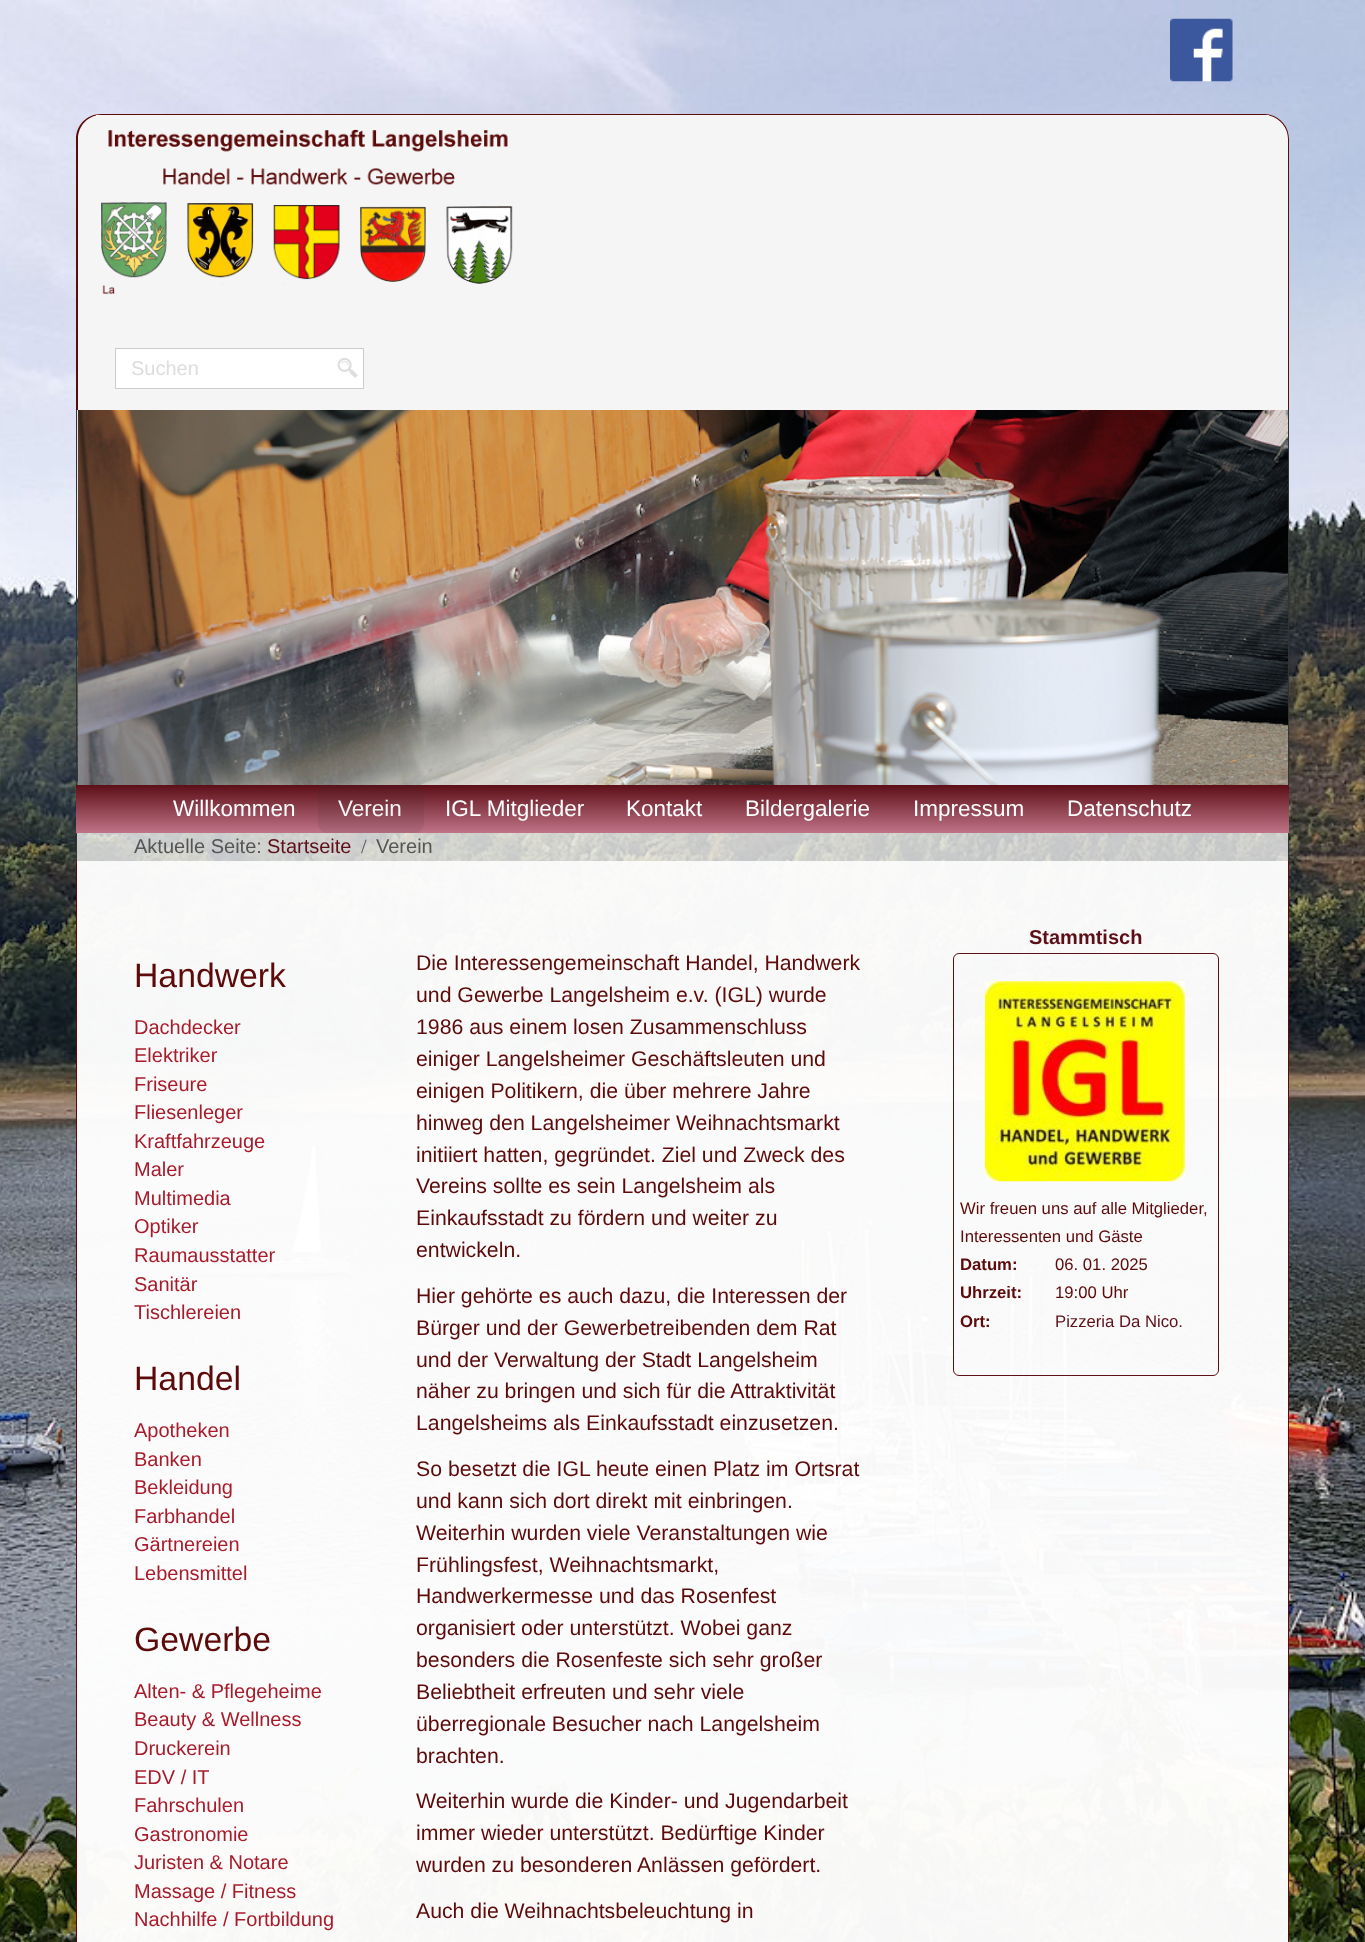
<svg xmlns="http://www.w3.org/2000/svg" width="1365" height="1942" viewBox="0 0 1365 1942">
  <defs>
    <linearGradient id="g1" gradientUnits="userSpaceOnUse" x1="683" y1="785" x2="683" y2="833"><stop offset="0" stop-color="rgb(92,15,23)"/><stop offset="1" stop-color="rgb(192,115,134)"/></linearGradient>
  </defs>
  <rect width="100%" height="100%" fill="rgb(255,255,255)"/>
  <image x="0" y="0" width="1365" height="1942" href="pic1.png"/>
  <image x="1170" y="18" width="63" height="64" href="pic2.png"/>
  <path d="M101 114H1264C1278 114 1289 125 1289 139V410H76V139C76 125 87 114 101 114Z" fill="rgb(245,245,245)"/>
  <path d="M101 114H1264C1278 114 1289 125 1289 139V410H76V139C76 125 87 114 101 114ZM101 115H1264C1277 115 1288 126 1288 139V410H78V139C78 126 88 115 101 115Z" fill="rgb(92,10,10)" fill-rule="evenodd"/>
  <rect x="96" y="115" width="1173" height="1" fill="rgb(245,245,245)"/>
  <image x="101" y="129" width="412" height="166" href="pic3.png"/>
  <rect x="115" y="285" width="397" height="10" fill="rgb(245,245,245)"/>
  <rect x="115.5" y="348.5" width="248" height="40" fill="rgb(255,255,255)" stroke="rgb(204,204,204)"/>
  <text x="131" y="375" font-family="Liberation Sans" font-size="20" fill="rgb(221,221,221)">Suchen</text>
  <image x="337" y="358" width="21" height="20" href="pic4.png"/>
  <rect x="1288" y="410" width="1" height="375" fill="rgb(51,51,51)"/>
  <rect x="76" y="410" width="1" height="375" fill="rgb(51,51,51)"/>
  <image x="78" y="410" width="1210" height="375" href="pic5.png"/>
  <rect x="76" y="785" width="1213" height="48" fill="url(#g1)"/>
  <text x="173" y="816" font-family="Liberation Sans" font-size="22.5" fill="rgb(255,255,255)">Willkommen</text>
  <rect x="318" y="785" width="106" height="48" rx="9" fill="rgba(51,51,51,0.1)"/>
  <text x="338" y="816" font-family="Liberation Sans" font-size="22.5" fill="rgb(245,245,245)">Verein</text>
  <g font-family="Liberation Sans" font-size="22.5" fill="rgb(255,255,255)">
    <text x="445" y="816">IGL Mitglieder</text>
    <text x="626" y="816">Kontakt</text>
    <text x="745" y="816">Bildergalerie</text>
    <text x="913" y="816">Impressum</text>
    <text x="1067" y="816">Datenschutz</text>
  </g>
  <rect x="77" y="833" width="1211" height="28" fill="rgba(255,255,255,0.75)"/>
  <rect x="1288" y="833" width="1" height="28" fill="rgb(51,51,51)"/>
  <rect x="76" y="833" width="1" height="28" fill="rgb(51,51,51)"/>
  <text x="134" y="853" font-family="Liberation Sans" font-size="20" fill="rgb(85,85,85)">Aktuelle Seite:</text>
  <text x="267" y="853" font-family="Liberation Sans" font-size="20" fill="rgb(92,15,23)">Startseite</text>
  <text x="361" y="853" font-family="Liberation Serif" font-size="20" fill="rgb(85,85,85)">/</text>
  <text x="376" y="853" font-family="Liberation Sans" font-size="20" fill="rgb(85,85,85)">Verein</text>
  <rect x="77" y="861" width="1211" height="1081" fill="rgba(255,255,255,0.97)"/>
  <rect x="1288" y="861" width="1" height="1081" fill="rgb(92,10,10)"/>
  <rect x="76" y="861" width="1" height="1081" fill="rgb(92,10,10)"/>
  <text x="134" y="987" font-family="Liberation Sans" font-size="33.75" fill="rgb(92,10,10)">Handwerk</text>
  <g font-family="Liberation Sans" font-size="20" fill="rgb(167,27,42)">
    <text>
      <tspan x="134" y="1034">Dachdecker</tspan>
      <tspan x="134" y="1062">Elektriker</tspan>
      <tspan x="134" y="1091">Friseure</tspan>
      <tspan x="134" y="1119">Fliesenleger</tspan>
      <tspan x="134" y="1148">Kraftfahrzeuge</tspan>
      <tspan x="134" y="1176">Maler</tspan>
      <tspan x="134" y="1205">Multimedia</tspan>
      <tspan x="134" y="1233">Optiker</tspan>
      <tspan x="134" y="1262">Raumausstatter</tspan>
      <tspan x="134" y="1291">Sanitär</tspan>
      <tspan x="134" y="1319">Tischlereien</tspan>
    </text>
  </g>
  <text x="134" y="1390" font-family="Liberation Sans" font-size="33.75" fill="rgb(92,10,10)">Handel</text>
  <g font-family="Liberation Sans" font-size="20" fill="rgb(167,27,42)">
    <text>
      <tspan x="134" y="1437">Apotheken</tspan>
      <tspan x="134" y="1466">Banken</tspan>
      <tspan x="134" y="1494">Bekleidung</tspan>
      <tspan x="134" y="1523">Farbhandel</tspan>
      <tspan x="134" y="1551">Gärtnereien</tspan>
      <tspan x="134" y="1580">Lebensmittel</tspan>
    </text>
  </g>
  <text x="134" y="1651" font-family="Liberation Sans" font-size="33.75" fill="rgb(92,10,10)">Gewerbe</text>
  <g font-family="Liberation Sans" font-size="20" fill="rgb(167,27,42)">
    <text>
      <tspan x="134" y="1698">Alten- &amp; Pflegeheime</tspan>
      <tspan x="134" y="1726">Beauty &amp; Wellness</tspan>
      <tspan x="134" y="1755">Druckerein</tspan>
      <tspan x="134" y="1784">EDV / IT</tspan>
      <tspan x="134" y="1812">Fahrschulen</tspan>
      <tspan x="134" y="1841">Gastronomie</tspan>
      <tspan x="134" y="1869">Juristen &amp; Notare</tspan>
      <tspan x="134" y="1898">Massage / Fitness</tspan>
      <tspan x="134" y="1926">Nachhilfe / Fortbildung</tspan>
    </text>
  </g>
  <g font-family="Liberation Sans" font-size="21.25" fill="rgb(92,10,10)">
    <text>
      <tspan x="416" y="970">Die Interessengemeinschaft Handel, Handwerk</tspan>
      <tspan x="416" y="1002">und Gewerbe Langelsheim e.v. (IGL) wurde</tspan>
      <tspan x="416" y="1034">1986 aus einem losen Zusammenschluss</tspan>
      <tspan x="416" y="1066">einiger Langelsheimer Geschäftsleuten und</tspan>
      <tspan x="416" y="1098">einigen Politikern, die über mehrere Jahre</tspan>
      <tspan x="416" y="1130">hinweg den Langelsheimer Weihnachtsmarkt</tspan>
      <tspan x="416" y="1162">initiiert hatten, gegründet. Ziel und Zweck des</tspan>
      <tspan x="416" y="1193">Vereins sollte es sein Langelsheim als</tspan>
      <tspan x="416" y="1225">Einkaufsstadt zu fördern und weiter zu</tspan>
      <tspan x="416" y="1257">entwickeln.</tspan>
    </text>
    <text>
      <tspan x="416" y="1303">Hier gehörte es auch dazu, die Interessen der</tspan>
      <tspan x="416" y="1335">Bürger und der Gewerbetreibenden dem Rat</tspan>
      <tspan x="416" y="1367">und der Verwaltung der Stadt Langelsheim</tspan>
      <tspan x="416" y="1398">näher zu bringen und sich für die Attraktivität</tspan>
      <tspan x="416" y="1430">Langelsheims als Einkaufsstadt einzusetzen.</tspan>
    </text>
    <text>
      <tspan x="416" y="1476">So besetzt die IGL heute einen Platz im Ortsrat</tspan>
      <tspan x="416" y="1508">und kann sich dort direkt mit einbringen.</tspan>
      <tspan x="416" y="1540">Weiterhin wurden viele Veranstaltungen wie</tspan>
      <tspan x="416" y="1572">Frühlingsfest, Weihnachtsmarkt,</tspan>
      <tspan x="416" y="1603">Handwerkermesse und das Rosenfest</tspan>
      <tspan x="416" y="1635">organisiert oder unterstützt. Wobei ganz</tspan>
      <tspan x="416" y="1667">besonders die Rosenfeste sich sehr großer</tspan>
      <tspan x="416" y="1699">Beliebtheit erfreuten und sehr viele</tspan>
      <tspan x="416" y="1731">überregionale Besucher nach Langelsheim</tspan>
      <tspan x="416" y="1763">brachten.</tspan>
    </text>
    <text>
      <tspan x="416" y="1808">Weiterhin wurde die Kinder- und Jugendarbeit</tspan>
      <tspan x="416" y="1840">immer wieder unterstützt. Bedürftige Kinder</tspan>
      <tspan x="416" y="1872">wurden zu besonderen Anlässen gefördert.</tspan>
    </text>
    <text x="416" y="1918">Auch die Weihnachtsbeleuchtung in</text>
  </g>
  <text x="1029" y="944" font-family="Liberation Sans" font-size="20" font-weight="bold" fill="rgb(92,15,23)">Stammtisch</text>
  <rect x="953.5" y="953.5" width="265" height="422" rx="5.5" fill="none" stroke="rgb(94,17,25)"/>
  <image x="985" y="981" width="200" height="201" href="pic6.png"/>
  <g font-family="Liberation Sans" font-size="16.7" fill="rgb(92,10,10)">
    <text>
      <tspan x="960" y="1214">Wir freuen uns auf alle Mitglieder,</tspan>
      <tspan x="960" y="1242">Interessenten und Gäste</tspan>
    </text>
  </g>
  <text x="960" y="1270" font-family="Liberation Sans" font-size="16.7" font-weight="bold" fill="rgb(92,10,10)">Datum:</text>
  <text x="1055" y="1270" font-family="Liberation Sans" font-size="16.7" fill="rgb(92,10,10)">06. 01. 2025</text>
  <text x="960" y="1298" font-family="Liberation Sans" font-size="16.7" font-weight="bold" fill="rgb(92,10,10)">Uhrzeit:</text>
  <text x="1055" y="1298" font-family="Liberation Sans" font-size="16.7" fill="rgb(92,10,10)">19:00 Uhr</text>
  <text x="960" y="1327" font-family="Liberation Sans" font-size="16.7" font-weight="bold" fill="rgb(92,10,10)">Ort:</text>
  <text x="1055" y="1327" font-family="Liberation Sans" font-size="16.7" fill="rgb(92,15,23)">Pizzeria Da Nico.</text>
</svg>
